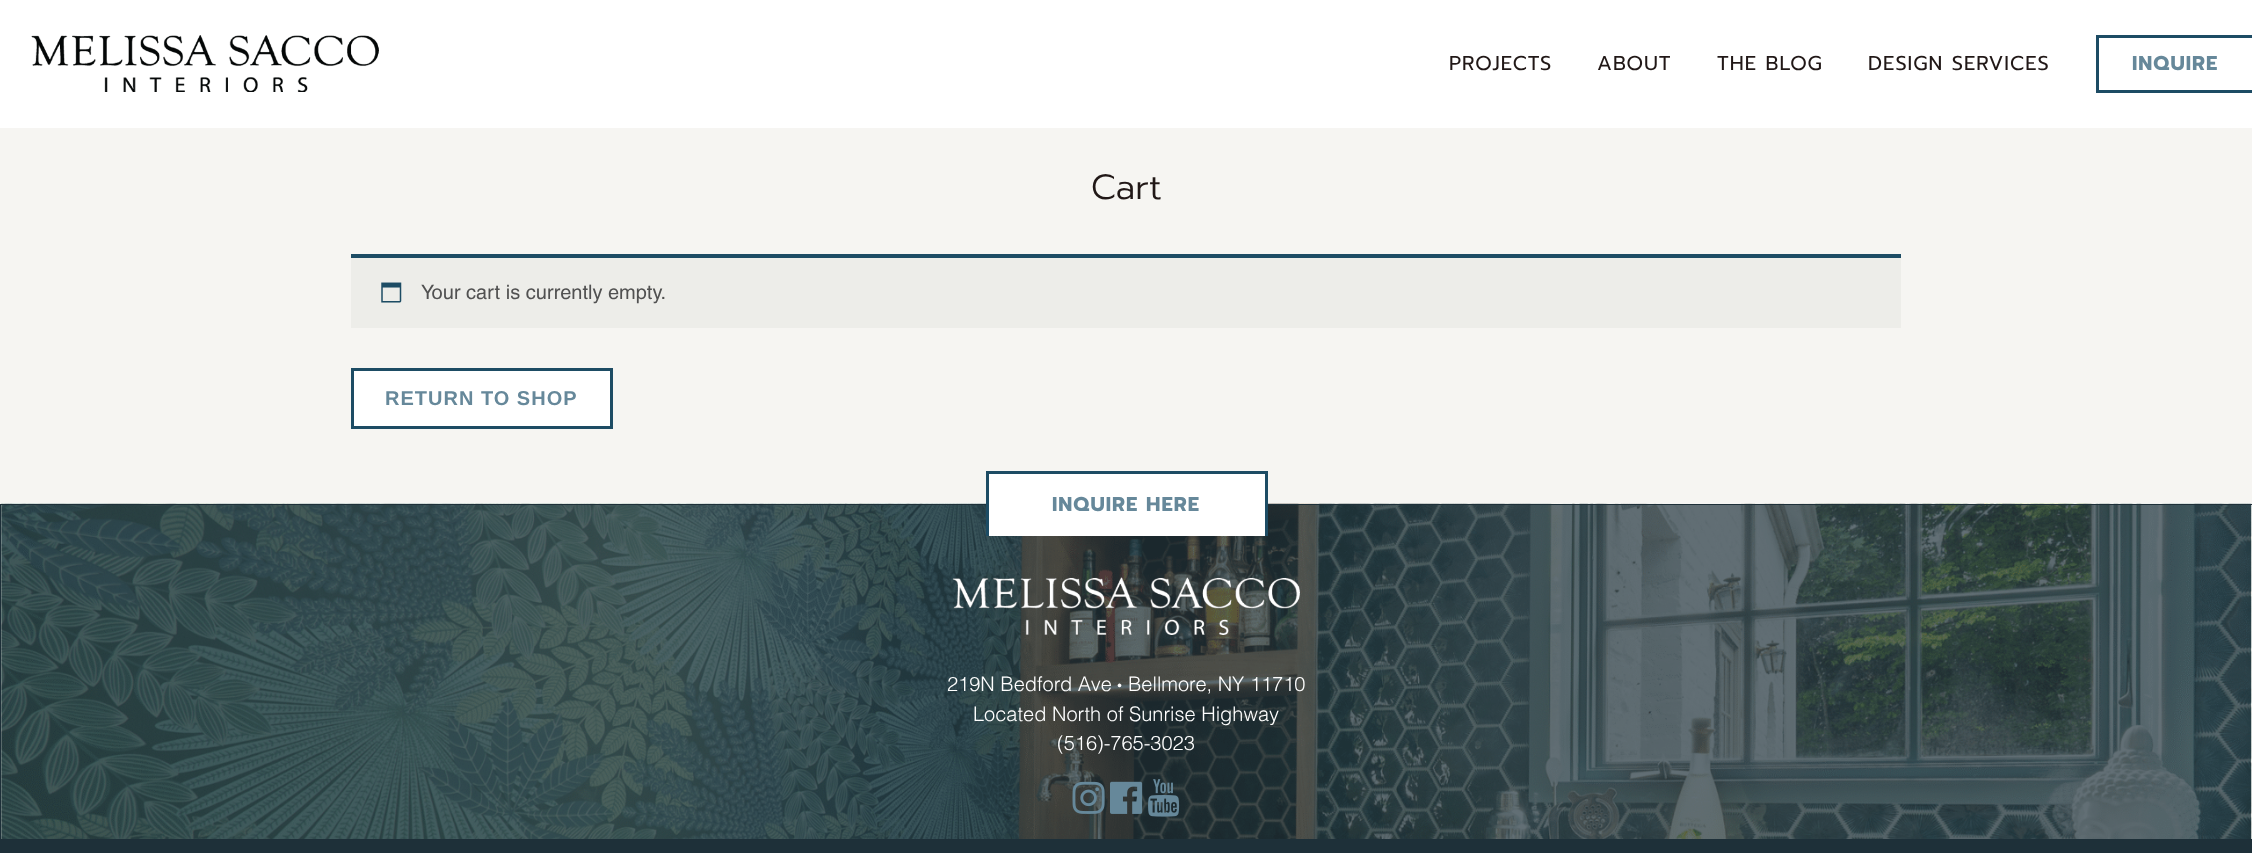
<svg xmlns="http://www.w3.org/2000/svg" width="2252" height="853" viewBox="0 0 2252 853">
  <rect width="100%" height="100%" fill="rgb(246,245,242)"/>
  <rect x="0" y="0" width="2252" height="128" fill="rgb(255,255,255)"/>
  <image x="31" y="35" width="348" height="57" href="pic1.png"/>
  <g font-family="Prompt" font-size="20" letter-spacing="1" fill="rgb(33,24,23)">
    <text x="1449" y="70">PROJECTS</text>
    <text x="1597" y="70">ABOUT</text>
    <text x="1717" y="70">THE BLOG</text>
    <text x="1868" y="70">DESIGN SERVICES</text>
  </g>
  <rect x="2096" y="35" width="156" height="3" fill="rgb(29,76,100)"/>
  <rect x="2096" y="90" width="156" height="3" fill="rgb(29,76,100)"/>
  <rect x="2096" y="35" width="3" height="58" fill="rgb(29,76,100)"/>
  <text x="2132" y="70" font-family="Prompt" font-size="20" font-weight="bold" letter-spacing="1" fill="rgb(102,136,154)">INQUIRE</text>
  <text x="1091" y="199" font-family="Prompt" font-size="35" font-weight="300" fill="rgb(33,24,23)">Cart</text>
  <rect x="351" y="258" width="1550" height="70" fill="rgb(237,237,233)"/>
  <rect x="351" y="254" width="1550" height="4" fill="rgb(29,76,100)"/>
  <image x="381" y="282" width="21" height="21" href="pic2.png"/>
  <text x="421" y="299" font-family="Helvetica" font-size="20" fill="rgb(81,81,81)">Your cart is currently empty.</text>
  <rect x="352.5" y="369.5" width="259" height="58" fill="rgb(255,255,255)" stroke="rgb(29,76,100)" stroke-width="3"/>
  <text x="385" y="405" font-family="Liberation Sans" font-size="20" font-weight="bold" letter-spacing="1" fill="rgb(102,136,154)">RETURN TO SHOP</text>
  <image x="1" y="503" width="2251" height="336" href="pic3.png"/>
  <rect x="0.5" y="504.5" width="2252" height="335" fill="none" stroke="rgb(30,48,57)"/>
  <rect x="989" y="474" width="276" height="62" fill="rgb(255,255,255)"/>
  <rect x="986" y="471" width="282" height="3" fill="rgb(29,76,100)"/>
  <rect x="1265" y="471" width="3" height="65" fill="rgb(29,76,100)"/>
  <rect x="986" y="471" width="3" height="65" fill="rgb(29,76,100)"/>
  <text x="1052" y="511" font-family="Prompt" font-size="20" font-weight="bold" letter-spacing="1" fill="rgb(102,136,154)">INQUIRE HERE</text>
  <image x="952" y="577" width="348" height="58" href="pic4.png"/>
  <text x="947" y="691" font-family="Helvetica" font-size="20" font-weight="300" fill="rgb(255,255,255)">219N Bedford Ave</text>
  <text x="1117" y="689" font-family="Helvetica" font-size="10" font-weight="300" fill="rgb(255,255,255)">•</text>
  <g font-family="Helvetica" font-size="20" font-weight="300" fill="rgb(255,255,255)">
    <text x="1128" y="691">Bellmore, NY 11710</text>
    <text x="973" y="721">Located North of Sunrise Highway</text>
    <text x="1057" y="750">(516)-765-3023</text>
  </g>
  <image x="1072" y="781" width="33" height="33" href="pic5.png"/>
  <image x="1110" y="781" width="33" height="33" href="pic6.png"/>
  <image x="1148" y="779" width="32" height="38" href="pic7.png"/>
  <rect x="0" y="840" width="2252" height="13" fill="rgb(30,48,57)"/>
</svg>
